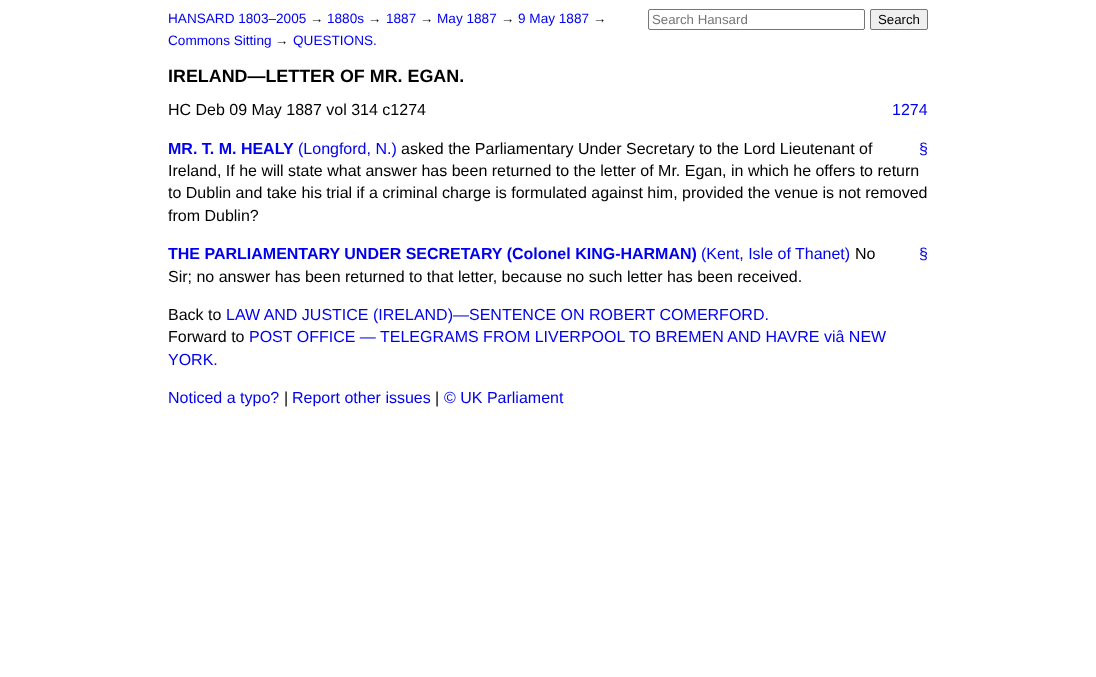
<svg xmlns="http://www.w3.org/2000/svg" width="1096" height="677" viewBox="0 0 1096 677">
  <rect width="100%" height="100%" fill="rgb(255,255,255)"/>
  <text x="168" y="23" font-family="Liberation Sans" font-size="13.6" fill="rgb(0,0,238)">HANSARD 1803–2005</text>
  <text x="310" y="23" font-family="Liberation Sans" font-size="13.6" fill="rgb(0,0,0)">→</text>
  <text x="327" y="23" font-family="Liberation Sans" font-size="13.6" fill="rgb(0,0,238)">1880s</text>
  <text x="368" y="23" font-family="Liberation Sans" font-size="13.6" fill="rgb(0,0,0)">→</text>
  <text x="386" y="23" font-family="Liberation Sans" font-size="13.6" fill="rgb(0,0,238)">1887</text>
  <text x="420" y="23" font-family="Liberation Sans" font-size="13.6" fill="rgb(0,0,0)">→</text>
  <text x="437" y="23" font-family="Liberation Sans" font-size="13.6" fill="rgb(0,0,238)">May 1887</text>
  <text x="501" y="23" font-family="Liberation Sans" font-size="13.6" fill="rgb(0,0,0)">→</text>
  <text x="518" y="23" font-family="Liberation Sans" font-size="13.6" fill="rgb(0,0,238)">9 May 1887</text>
  <text x="593" y="23" font-family="Liberation Sans" font-size="13.6" fill="rgb(0,0,0)">→</text>
  <text x="168" y="45" font-family="Liberation Sans" font-size="13.6" fill="rgb(0,0,238)">Commons Sitting</text>
  <text x="275" y="45" font-family="Liberation Sans" font-size="13.6" fill="rgb(0,0,0)">→</text>
  <text x="293" y="45" font-family="Liberation Sans" font-size="13.6" fill="rgb(0,0,238)">QUESTIONS.</text>
  <rect x="648.5" y="9.5" width="216" height="20" rx="1.5" fill="none" stroke="rgb(118,118,118)"/>
  <text x="652" y="24" font-family="Liberation Sans" font-size="13.25" fill="rgb(117,117,117)">Search Hansard</text>
  <rect x="870.5" y="9.5" width="57" height="20" rx="1.5" fill="rgb(239,239,239)" stroke="rgb(118,118,118)"/>
  <text x="878" y="24" font-family="Liberation Sans" font-size="13.25" fill="rgb(0,0,0)">Search</text>
  <text x="168" y="82" font-family="Liberation Sans" font-size="17.9" font-weight="bold" fill="rgb(0,0,0)">IRELAND—LETTER OF MR. EGAN.</text>
  <text x="168" y="115" font-family="Liberation Sans" font-size="16" fill="rgb(0,0,0)">HC Deb 09 May 1887 vol 314 c1274</text>
  <text x="892" y="115" font-family="Liberation Sans" font-size="16" fill="rgb(0,0,238)">1274</text>
  <text x="168" y="154" font-family="Liberation Sans" font-size="16" font-weight="bold" fill="rgb(0,0,238)">MR. T. M. HEALY</text>
  <text x="298" y="154" font-family="Liberation Sans" font-size="16" fill="rgb(0,0,238)">(Longford, N.)</text>
  <text x="401" y="154" font-family="Liberation Sans" font-size="16" fill="rgb(0,0,0)">asked the Parliamentary Under Secretary to the Lord Lieutenant of</text>
  <text x="919" y="154" font-family="Liberation Sans" font-size="16" fill="rgb(0,0,238)">§</text>
  <g font-family="Liberation Sans" font-size="16" fill="rgb(0,0,0)">
    <text>
      <tspan x="168" y="176">Ireland, If he will state what answer has been returned to the letter of Mr. Egan, in which he offers to return</tspan>
      <tspan x="168" y="198">to Dublin and take his trial if a criminal charge is formulated against him, provided the venue is not removed</tspan>
      <tspan x="168" y="221">from Dublin?</tspan>
    </text>
  </g>
  <text x="168" y="259" font-family="Liberation Sans" font-size="16" font-weight="bold" fill="rgb(0,0,238)">THE PARLIAMENTARY UNDER SECRETARY (Colonel KING-HARMAN)</text>
  <text x="701" y="259" font-family="Liberation Sans" font-size="16" fill="rgb(0,0,238)">(Kent, Isle of Thanet)</text>
  <text x="855" y="259" font-family="Liberation Sans" font-size="16" fill="rgb(0,0,0)">No</text>
  <text x="919" y="259" font-family="Liberation Sans" font-size="16" fill="rgb(0,0,238)">§</text>
  <g font-family="Liberation Sans" font-size="16" fill="rgb(0,0,0)">
    <text x="168" y="282">Sir; no answer has been returned to that letter, because no such letter has been received.</text>
    <text x="168" y="320">Back to</text>
  </g>
  <text x="226" y="320" font-family="Liberation Sans" font-size="16" fill="rgb(0,0,238)">LAW AND JUSTICE (IRELAND)—SENTENCE ON ROBERT COMERFORD.</text>
  <text x="168" y="342" font-family="Liberation Sans" font-size="16" fill="rgb(0,0,0)">Forward to</text>
  <g font-family="Liberation Sans" font-size="16" fill="rgb(0,0,238)">
    <text x="249" y="342">POST OFFICE — TELEGRAMS FROM LIVERPOOL TO BREMEN AND HAVRE viâ NEW</text>
    <text x="168" y="365">YORK.</text>
    <text x="168" y="403">Noticed a typo?</text>
  </g>
  <text x="284" y="403" font-family="Liberation Sans" font-size="16" fill="rgb(0,0,0)">|</text>
  <text x="292" y="403" font-family="Liberation Sans" font-size="16" fill="rgb(0,0,238)">Report other issues</text>
  <text x="435" y="403" font-family="Liberation Sans" font-size="16" fill="rgb(0,0,0)">|</text>
  <text x="444" y="403" font-family="Liberation Sans" font-size="16" fill="rgb(0,0,238)">© UK Parliament</text>
</svg>
